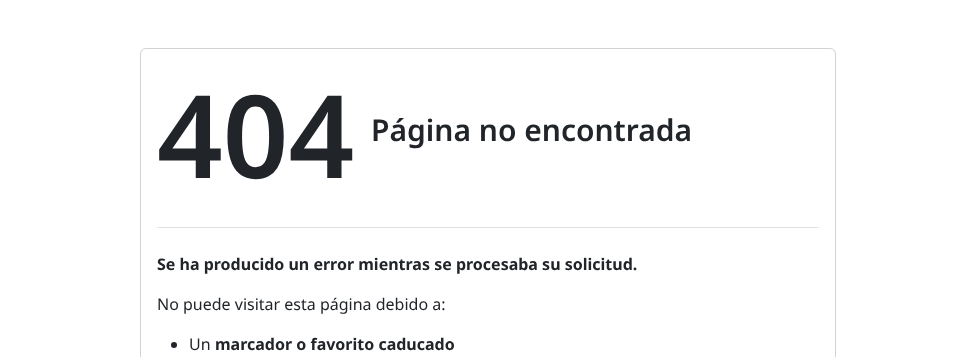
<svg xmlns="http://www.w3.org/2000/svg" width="976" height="357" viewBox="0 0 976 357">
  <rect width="100%" height="100%" fill="rgb(255,255,255)"/>
  <rect x="140.5" y="48.5" width="695" height="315" rx="5.5" fill="none" stroke="rgb(210,210,210)"/>
  <rect x="157" y="227" width="662" height="1" fill="rgb(222,226,230)"/>
  <text x="157" y="178" font-family="Noto Sans" font-size="115" font-weight="600" fill="rgb(33,37,41)">404</text>
  <text x="371" y="141" font-family="Noto Sans" font-size="30" font-weight="600" fill="rgb(33,37,41)">Página no encontrada</text>
  <text x="157" y="270" font-family="Noto Sans" font-size="16" font-weight="bold" fill="rgb(33,37,41)">Se ha producido un error mientras se procesaba su solicitud.</text>
  <text x="157" y="310" font-family="Noto Sans" font-size="16" fill="rgb(33,37,41)">No puede visitar esta página debido a:</text>
  <circle cx="174" cy="345" r="3" fill="rgb(33,37,41)"/>
  <text x="189" y="350" font-family="Noto Sans" font-size="16" fill="rgb(33,37,41)">Un</text>
  <text x="215" y="350" font-family="Noto Sans" font-size="16" font-weight="bold" fill="rgb(33,37,41)">marcador o favorito caducado</text>
</svg>
